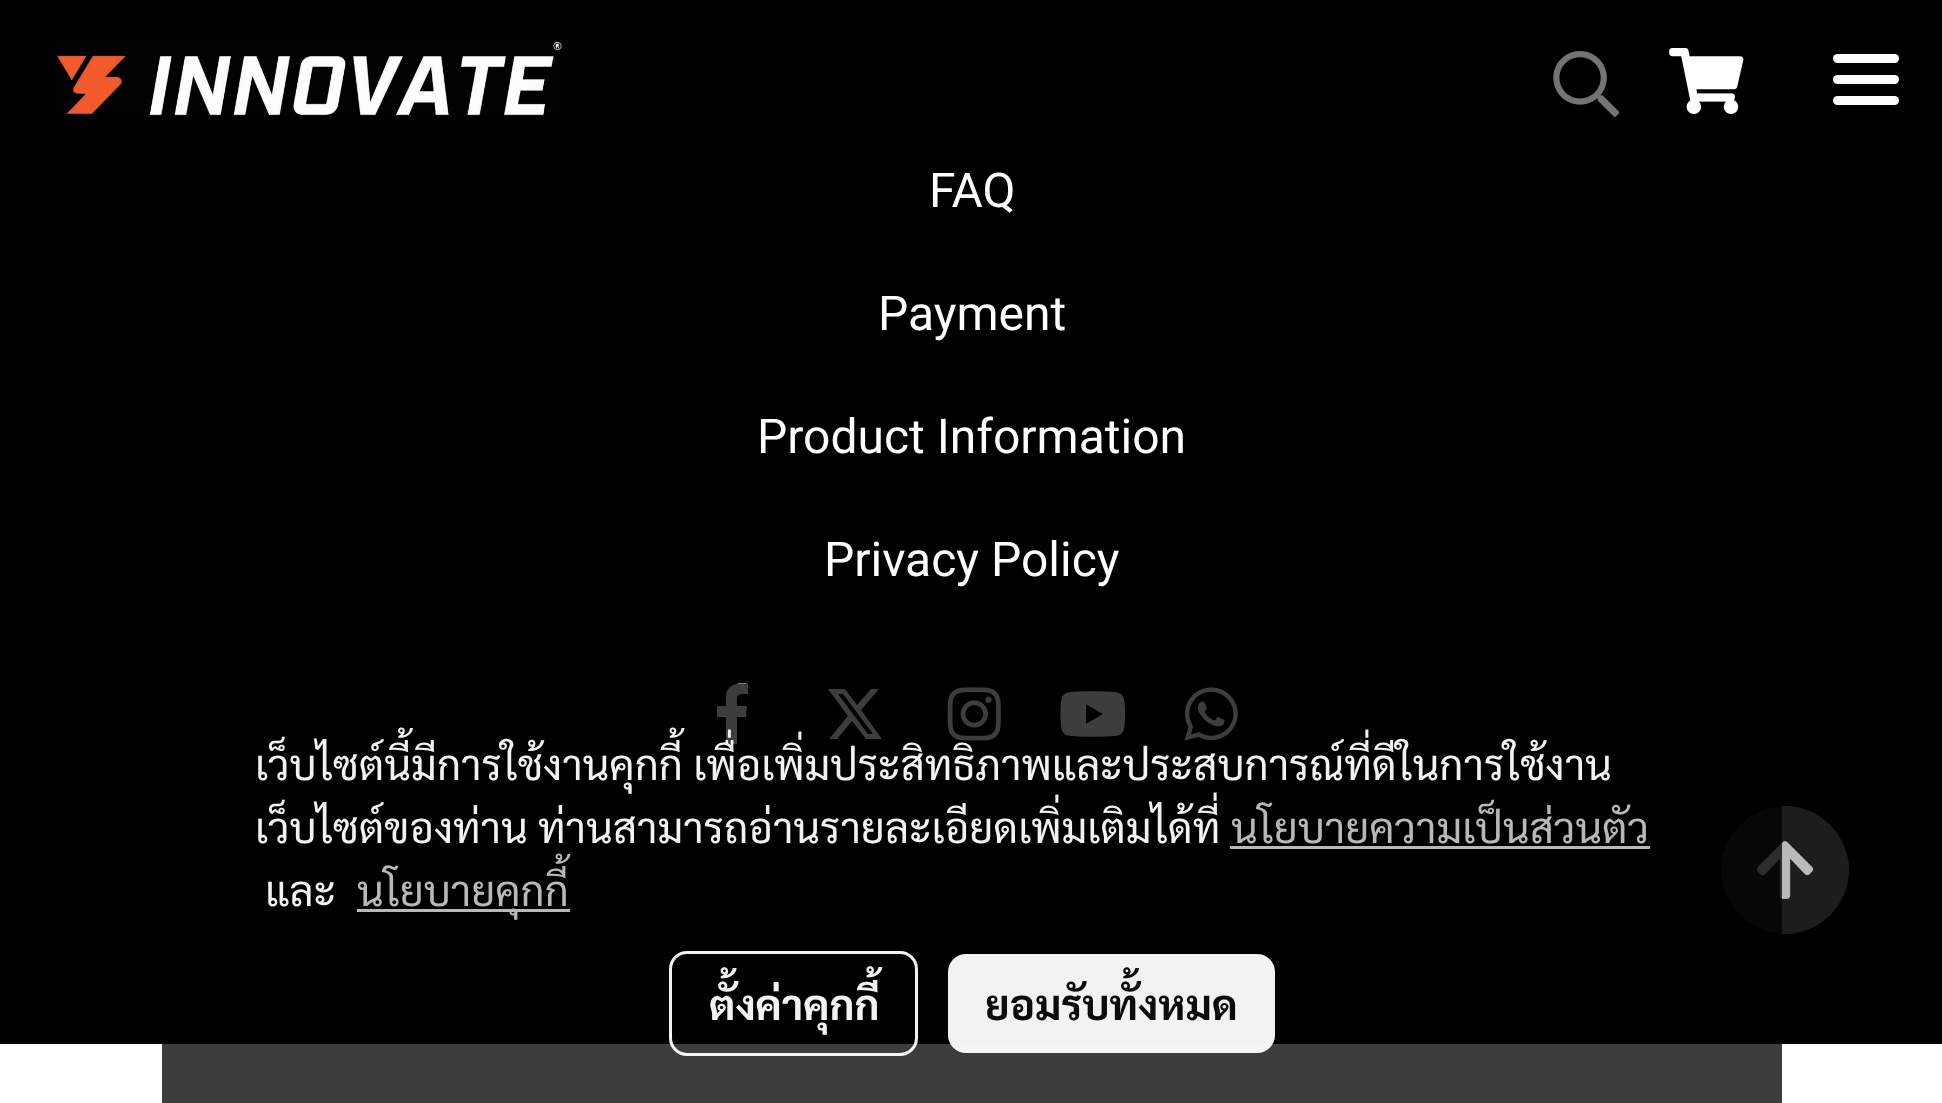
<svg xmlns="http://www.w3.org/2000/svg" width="1942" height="1103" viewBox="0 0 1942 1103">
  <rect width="100%" height="100%" fill="rgb(255,255,255)"/>
  <rect x="0" y="171" width="1942" height="873" fill="rgb(0,0,0)"/>
  <rect x="0" y="6" width="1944" height="171" fill="rgba(0,0,0,0.12)" filter="blur(15px)"/>
  <rect x="0" y="6" width="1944" height="171" fill="rgba(0,0,0,0.16)" filter="blur(7.5px)"/>
  <rect x="0" y="0" width="1942" height="171" fill="rgb(0,0,0)"/>
  <image x="56" y="42" width="506" height="74" href="pic1.png"/>
  <image x="1553" y="51" width="67" height="66" href="pic2.png"/>
  <image x="1669" y="48" width="75" height="66" href="pic3.png"/>
  <rect x="1833" y="75" width="66" height="9" rx="4.5" fill="rgb(255,255,255)"/>
  <rect x="1833" y="54" width="66" height="9" rx="4.5" fill="rgb(255,255,255)"/>
  <rect x="1833" y="96" width="66" height="9" rx="4.5" fill="rgb(255,255,255)"/>
  <g font-family="Roboto" font-size="48" fill="rgb(255,255,255)">
    <text x="929" y="207">FAQ</text>
    <text x="878" y="330">Payment</text>
    <text x="757" y="453">Product Information</text>
    <text x="824" y="576">Privacy Policy</text>
  </g>
  <path d="M726 744V717H717V706H726V695C728 683 739 683 748 684V694C735 694 737 695 737 706H747L746 717H737V744" fill="rgb(255,255,255)"/>
  <path d="M871 689H879L861 710L882 739H866L852 721L837 739H829L848 716L828 689H845L857 705ZM868 734H873L843 694H838Z" fill="rgb(255,255,255)"/>
  <image x="947" y="687" width="54" height="54" href="pic4.png"/>
  <image x="1060" y="691" width="66" height="46" href="pic5.png"/>
  <image x="1184" y="687" width="54" height="54" href="pic6.png"/>
  <path d="M1785 806C1750 806 1721 835 1721 870C1721 905 1750 934 1785 934C1820 934 1849 905 1849 870C1849 835 1820 806 1785 806Z" fill="rgb(30,29,29)"/>
  <image x="1756" y="841" width="58" height="58" href="pic7.png"/>
  <rect x="162" y="684" width="1620" height="419" fill="rgba(0,0,0,0.76)"/>
  <g font-family="Sarabun" font-size="42" fill="rgb(242,242,242)">
    <text>
      <tspan x="255" y="780">เว็บไซต์นี้มีการใช้งานคุกกี้ เพื่อเพิ่มประสิทธิภาพและประสบการณ์ที่ดีในการใช้งาน</tspan>
      <tspan x="255" y="843">เว็บไซต์ของท่าน ท่านสามารถอ่านรายละเอียดเพิ่มเติมได้ที่</tspan>
    </text>
  </g>
  <text x="1231" y="843" font-family="Sarabun" font-size="42" fill="rgb(184,184,184)">นโยบายความเป็นส่วนตัว</text>
  <rect x="1230" y="846" width="420" height="3" fill="rgb(184,184,184)"/>
  <text x="265" y="906" font-family="Sarabun" font-size="42" fill="rgb(242,242,242)">และ</text>
  <rect x="357" y="909" width="213" height="3" fill="rgb(184,184,184)"/>
  <text x="357" y="906" font-family="Sarabun" font-size="42" fill="rgb(184,184,184)">นโยบายคุกกี้</text>
  <rect x="670.5" y="952.5" width="246" height="102" rx="16.5" fill="none" stroke="rgba(255,255,255,0.95)" stroke-width="3"/>
  <text x="709" y="1020" font-family="Sarabun" font-size="42" font-weight="bold" fill="rgb(242,242,242)">ตั้งค่าคุกกี้</text>
  <rect x="948" y="954" width="327" height="99" rx="18" fill="rgba(255,255,255,0.95)"/>
  <text x="985" y="1020" font-family="Sarabun" font-size="42" font-weight="bold" fill="rgb(12,12,12)">ยอมรับทั้งหมด</text>
</svg>
